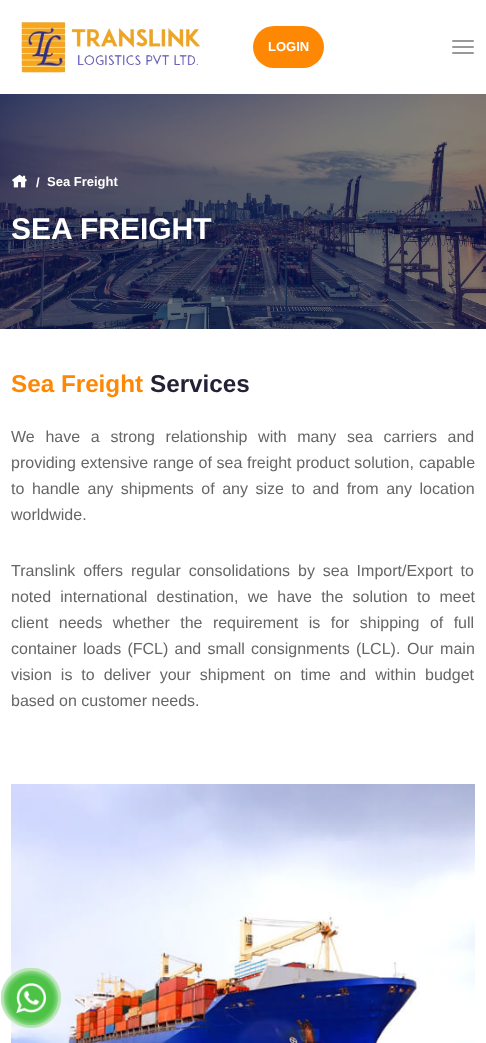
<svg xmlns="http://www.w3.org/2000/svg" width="486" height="1043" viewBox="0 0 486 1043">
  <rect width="100%" height="100%" fill="rgb(255,255,255)"/>
  <image x="21" y="22" width="179" height="51" href="pic1.png"/>
  <rect x="253" y="26" width="71" height="42" rx="21" fill="rgb(254,135,4)"/>
  <text x="268" y="51" font-family="Liberation Sans" font-size="13" font-weight="bold" fill="rgb(255,255,255)">LOGIN</text>
  <rect x="452" y="40" width="22" height="2" rx="1" fill="rgb(153,153,153)"/>
  <rect x="452" y="46" width="22" height="2" rx="1" fill="rgb(153,153,153)"/>
  <rect x="452" y="52" width="22" height="2" rx="1" fill="rgb(153,153,153)"/>
  <image x="0" y="94" width="486" height="235" href="pic2.png"/>
  <image x="12" y="174" width="15" height="14" href="pic3.png"/>
  <g font-family="Liberation Sans" font-size="13" font-weight="bold" fill="rgb(255,255,255)">
    <text x="36" y="187">/</text>
    <text x="47" y="186">Sea Freight</text>
  </g>
  <text x="11" y="239" font-family="Liberation Sans" font-size="30" font-weight="bold" fill="rgb(255,255,255)">SEA FREIGHT</text>
  <text x="11" y="392" font-family="Liberation Sans" font-size="24.25" font-weight="bold" fill="rgb(254,135,4)">Sea Freight</text>
  <text x="150" y="392" font-family="Liberation Sans" font-size="24.25" font-weight="bold" fill="rgb(35,33,53)">Services</text>
  <g font-family="Liberation Sans" font-size="16" fill="rgb(102,102,102)">
    <text>
      <tspan x="11" y="442" word-spacing="6.25">We have a strong relationship with many sea carriers and</tspan>
      <tspan x="11" y="468" word-spacing="0.25">providing extensive range of sea freight product solution,</tspan>
    </text>
    <text x="419" y="468">capable</text>
    <text>
      <tspan x="11" y="494" word-spacing="3.1">to handle any shipments of any size to and from any location</tspan>
      <tspan x="11" y="520">worldwide.</tspan>
    </text>
    <text>
      <tspan x="11" y="576" word-spacing="3.5">Translink offers regular consolidations by sea Import/Export to</tspan>
      <tspan x="11" y="602" word-spacing="4.75">noted international destination, we have the solution to meet</tspan>
      <tspan x="11" y="628" word-spacing="6">client needs whether the requirement is for shipping of full</tspan>
      <tspan x="11" y="654" word-spacing="1.75">container loads (FCL) and small consignments (LCL).</tspan>
    </text>
    <text x="407" y="654" word-spacing="2">Our main</text>
    <text>
      <tspan x="11" y="680" word-spacing="4.5">vision is to deliver your shipment on time and within budget</tspan>
      <tspan x="11" y="706">based on customer needs.</tspan>
    </text>
  </g>
  <image x="11" y="784" width="464" height="259" href="pic4.png"/>
  <image x="1" y="968" width="60" height="60" href="pic5.png"/>
</svg>
